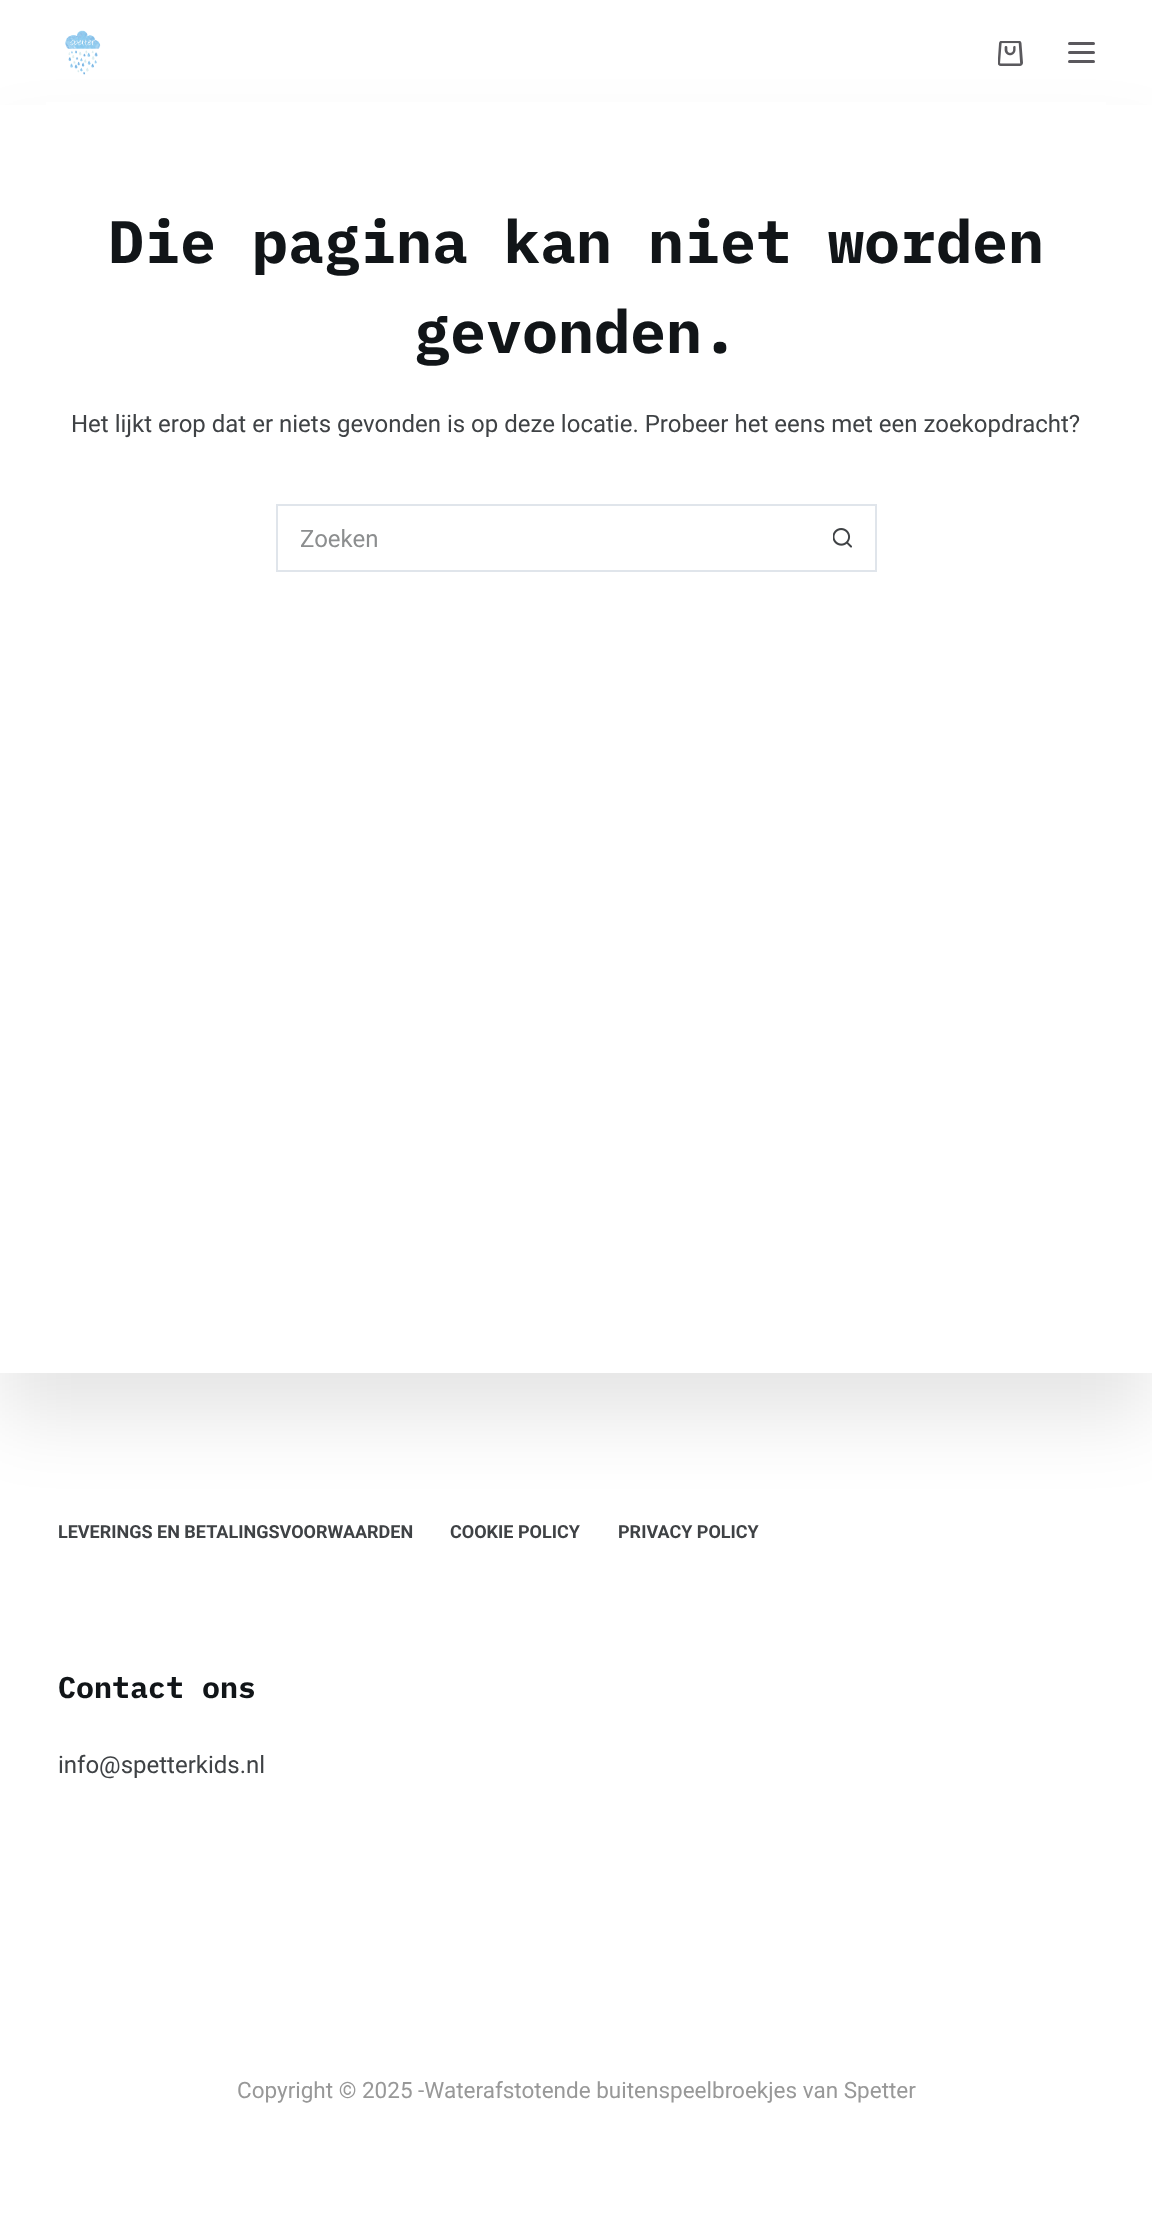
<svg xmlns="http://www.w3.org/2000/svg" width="1152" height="2224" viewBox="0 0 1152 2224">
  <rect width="100%" height="100%" fill="rgb(255,255,255)"/>
  <rect x="0" y="150" width="1152" height="1268" fill="rgba(0,0,0,0.1)" filter="blur(37.5px)"/>
  <rect x="46" y="102" width="1060" height="3" fill="rgb(255,255,255)"/>
  <image x="65" y="30" width="36" height="45" href="pic1.png"/>
  <image x="998" y="41" width="25" height="25" href="pic2.png"/>
  <rect x="1068" y="42" width="27" height="3" rx="1.5" fill="rgb(90,88,93)"/>
  <rect x="1068" y="51" width="27" height="3" rx="1.5" fill="rgb(90,88,93)"/>
  <rect x="1068" y="60" width="27" height="3" rx="1.5" fill="rgb(90,88,93)"/>
  <rect x="0" y="105" width="1152" height="1268" fill="rgb(255,255,255)"/>
  <g font-family="IBM Plex Mono" font-size="60" font-weight="bold" fill="rgb(17,21,24)">
    <text x="108" y="263">Die pagina kan niet worden</text>
    <text x="414" y="353">gevonden.</text>
  </g>
  <text x="71" y="432" font-family="Roboto" font-size="24" fill="rgb(63,66,69)">Het lijkt erop dat er niets gevonden is op deze locatie. Probeer het eens met een zoekopdracht?</text>
  <rect x="276" y="504" width="600" height="2" fill="rgb(224,229,235)"/>
  <rect x="276" y="570" width="533" height="2" fill="rgb(224,229,235)"/>
  <rect x="276" y="504" width="2" height="68" fill="rgb(224,229,235)"/>
  <text x="300" y="547" font-family="Roboto" font-size="24" fill="rgb(140,142,143)">Zoeken</text>
  <rect x="875" y="504" width="2" height="68" fill="rgb(224,229,235)"/>
  <rect x="809" y="570" width="67" height="2" fill="rgb(224,229,235)"/>
  <image x="833" y="528" width="19" height="20" href="pic3.png"/>
  <g font-family="Roboto" font-size="18" font-weight="bold" fill="rgb(63,66,69)">
    <text x="58" y="1538">LEVERINGS EN BETALINGSVOORWAARDEN</text>
    <text x="450" y="1538">COOKIE POLICY</text>
    <text x="618" y="1538">PRIVACY POLICY</text>
  </g>
  <text x="58" y="1698" font-family="IBM Plex Mono" font-size="30" font-weight="bold" fill="rgb(17,21,24)">Contact ons</text>
  <text x="58" y="1773" font-family="Roboto" font-size="24" fill="rgb(63,66,69)">info@spetterkids.nl</text>
  <text x="237" y="2098" font-family="Roboto" font-size="22.5" fill="rgb(152,152,152)">Copyright © 2025 -Waterafstotende buitenspeelbroekjes van Spetter</text>
</svg>
